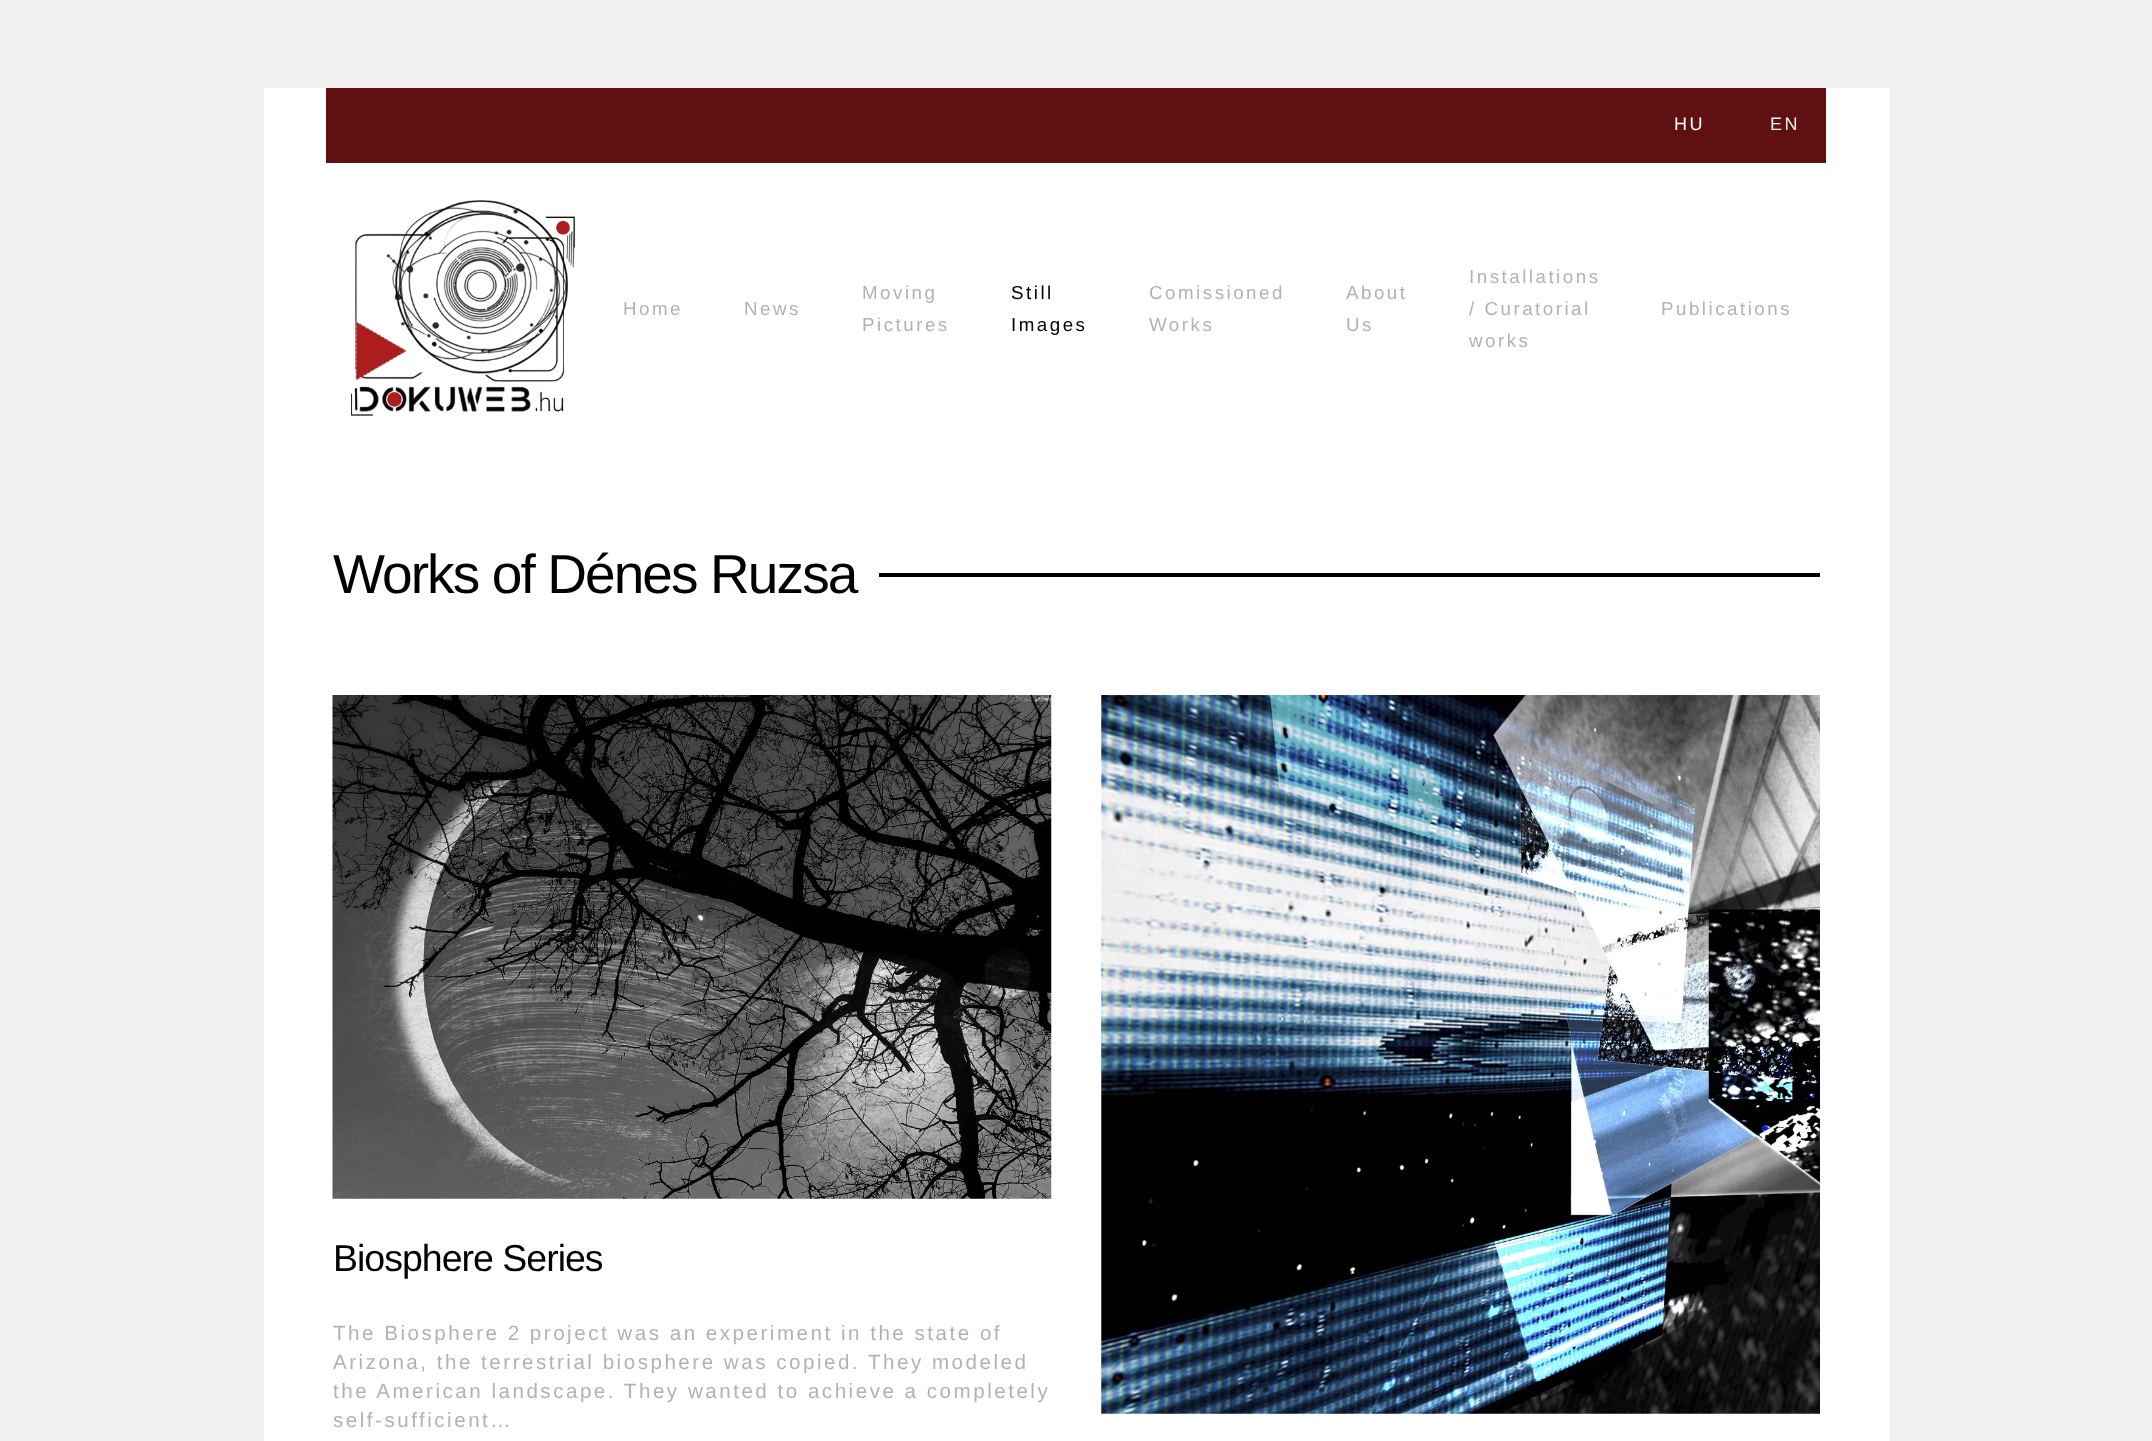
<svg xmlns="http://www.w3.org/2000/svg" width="2152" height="1441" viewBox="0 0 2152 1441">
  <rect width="100%" height="100%" fill="rgb(241,241,241)"/>
  <rect x="264" y="88" width="1625" height="1353" fill="rgb(255,255,255)"/>
  <rect x="326" y="88" width="1500" height="75" fill="rgb(95,17,17)"/>
  <text x="1674" y="130" font-family="Liberation Sans" font-size="18" letter-spacing="2.5" fill="rgb(255,255,255)">HU</text>
  <text x="1770" y="130" font-family="Liberation Sans" font-size="18" letter-spacing="2.5" fill="rgb(236,236,236)">EN</text>
  <image x="351" y="200" width="225" height="216" href="pic1.png"/>
  <g font-family="Liberation Sans" font-size="18.75" letter-spacing="2.5" fill="rgb(178,178,178)">
    <text x="623" y="315">Home</text>
    <text x="744" y="315">News</text>
    <text>
      <tspan x="862" y="299">Moving</tspan>
      <tspan x="862" y="331">Pictures</tspan>
    </text>
  </g>
  <g font-family="Liberation Sans" font-size="18.75" letter-spacing="2.5" fill="rgb(0,0,0)">
    <text>
      <tspan x="1011" y="299">Still</tspan>
      <tspan x="1011" y="331">Images</tspan>
    </text>
  </g>
  <g font-family="Liberation Sans" font-size="18.75" letter-spacing="2.5" fill="rgb(178,178,178)">
    <text>
      <tspan x="1149" y="299">Comissioned</tspan>
      <tspan x="1149" y="331">Works</tspan>
    </text>
    <text>
      <tspan x="1346" y="299">About</tspan>
      <tspan x="1346" y="331">Us</tspan>
    </text>
    <text>
      <tspan x="1469" y="283">Installations</tspan>
      <tspan x="1469" y="315">/ Curatorial</tspan>
      <tspan x="1469" y="347">works</tspan>
    </text>
    <text x="1661" y="315">Publications</text>
  </g>
  <text x="333" y="593" font-family="Liberation Sans" font-size="55" letter-spacing="-1.9" fill="rgb(0,0,0)">Works of Dénes Ruzsa</text>
  <rect x="879" y="573" width="941" height="4" fill="rgb(0,0,0)"/>
  <image x="332" y="695" width="720" height="504" href="pic2.png"/>
  <text x="333" y="1271" font-family="Liberation Sans" font-size="37.5" letter-spacing="-1" fill="rgb(0,0,0)">Biosphere Series</text>
  <g font-family="Liberation Sans" font-size="20.6" letter-spacing="2.5" fill="rgb(178,178,178)">
    <text>
      <tspan x="333" y="1340">The Biosphere 2 project was an experiment in the state of</tspan>
      <tspan x="333" y="1369">Arizona, the terrestrial biosphere was copied. They modeled</tspan>
      <tspan x="333" y="1398">the American landscape. They wanted to achieve a completely</tspan>
      <tspan x="333" y="1427">self-sufficient…</tspan>
    </text>
  </g>
  <image x="1101" y="695" width="719" height="719" href="pic3.png"/>
</svg>
